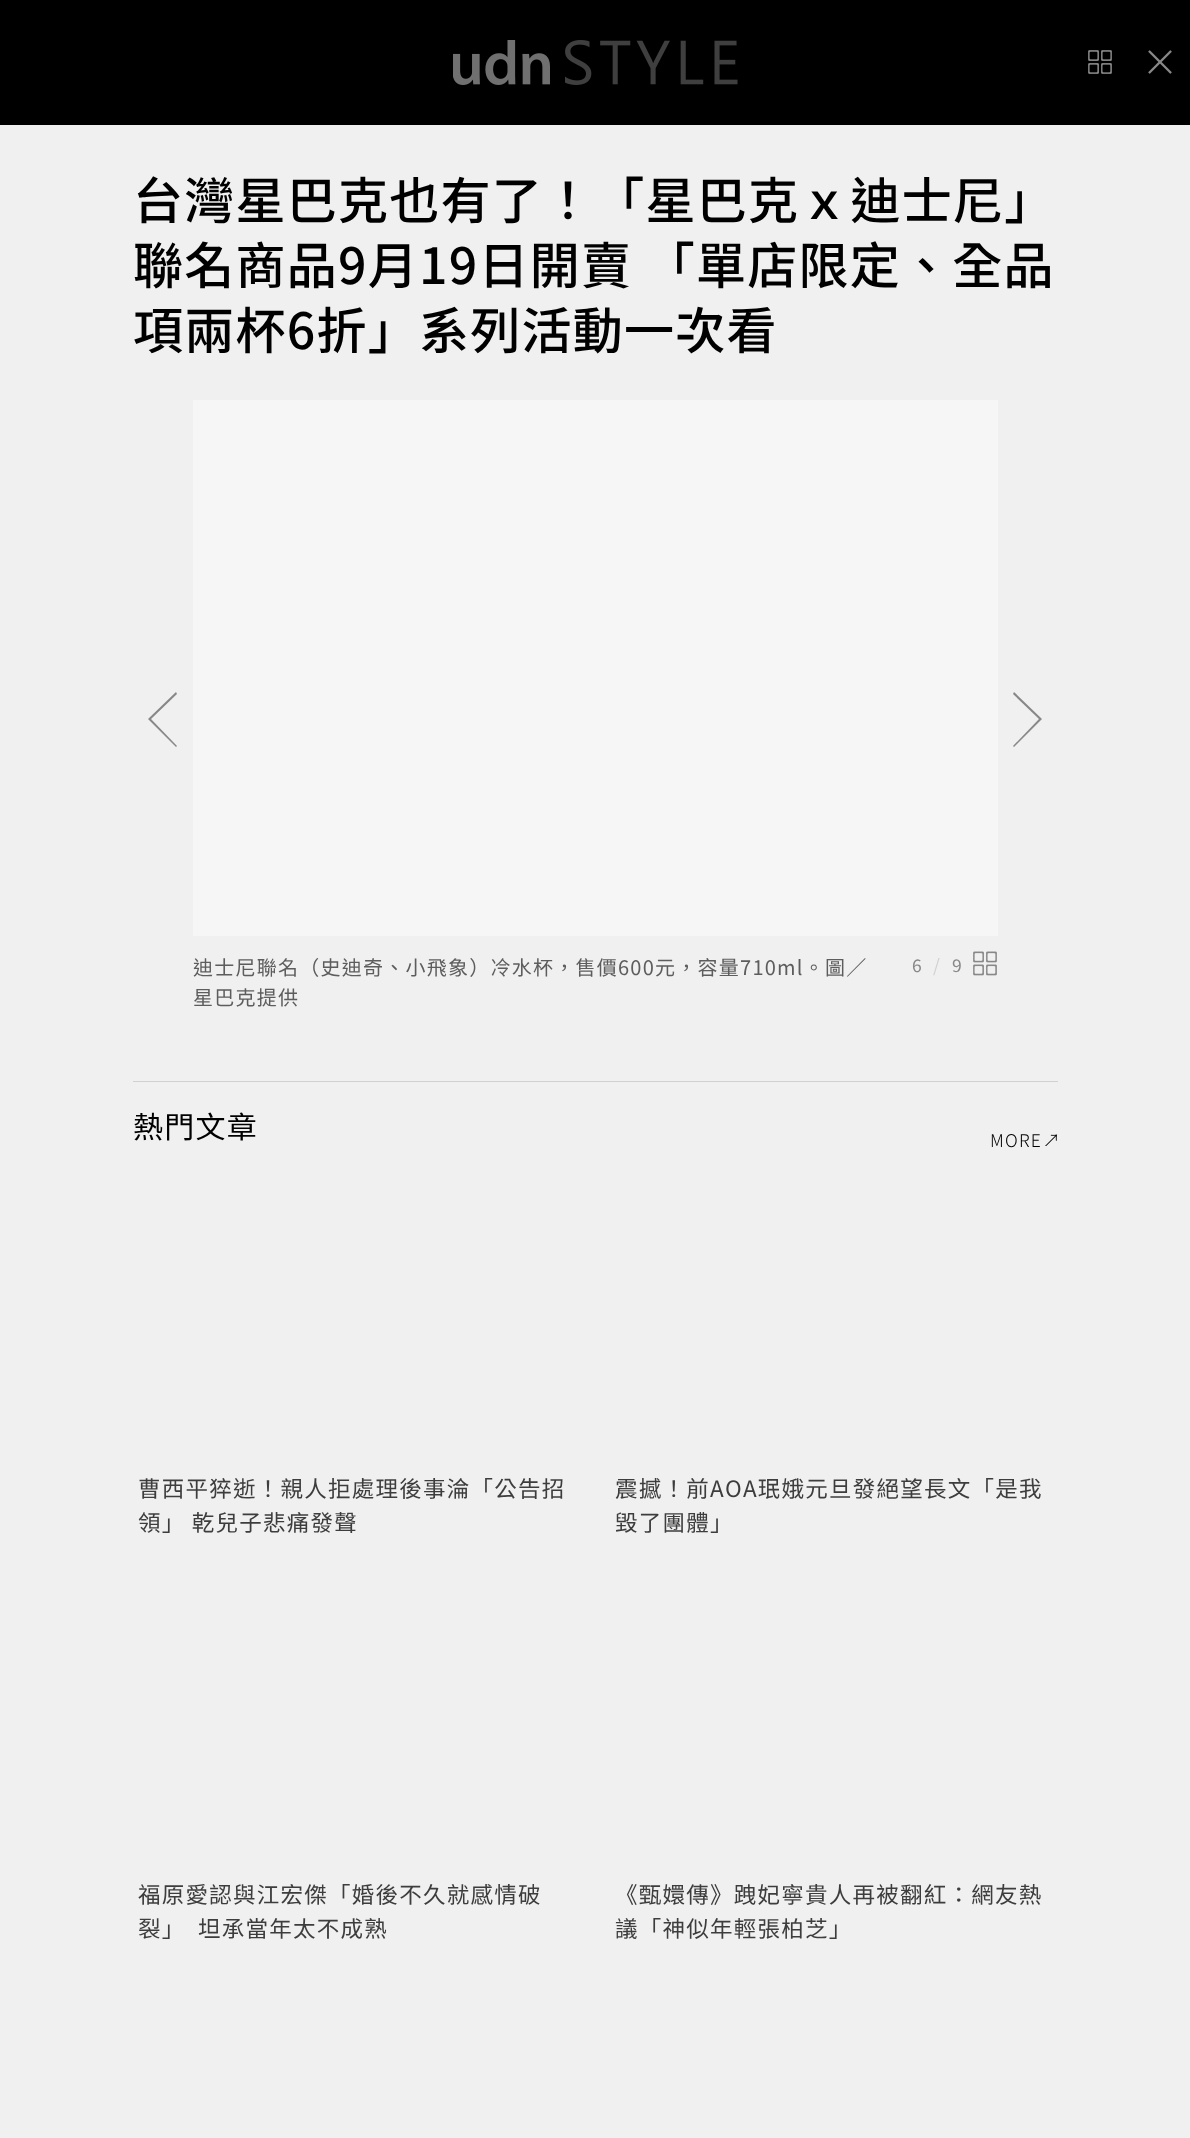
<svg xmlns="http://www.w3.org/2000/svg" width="1190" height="2138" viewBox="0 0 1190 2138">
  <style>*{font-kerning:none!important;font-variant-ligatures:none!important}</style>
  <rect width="100%" height="100%" fill="rgb(240,240,240)"/>
  <rect x="0" y="0" width="1190" height="125" fill="rgb(0,0,0)"/>
  <image x="453" y="40" width="97" height="45" href="pic1.png"/>
  <image x="565" y="40" width="173" height="45" href="pic2.png"/>
  <image x="1088" y="50" width="24" height="24" href="pic3.png"/>
  <image x="1148" y="50" width="24" height="24" href="pic4.png"/>
  <g font-family="Noto Sans TC" font-size="50" font-weight="500" letter-spacing="1.25" fill="rgb(0,0,0)">
    <text>
      <tspan x="133" y="219">台灣星巴克也有了！「星巴克ｘ迪士尼」</tspan>
      <tspan x="133" y="284">聯名商品9月19日開賣 「單店限定、全品</tspan>
      <tspan x="133" y="349">項兩杯6折」系列活動一次看</tspan>
    </text>
  </g>
  <path d="M176 747L148 719L176 692L177 694L151 719L177 746Z" fill="rgb(136,136,136)"/>
  <path d="M1014 747L1013 746L1039 719L1013 694L1014 692L1042 719Z" fill="rgb(136,136,136)"/>
  <rect x="193" y="400" width="805" height="536" fill="rgb(246,246,246)"/>
  <g font-family="Noto Sans TC" font-size="20" letter-spacing="1.25" fill="rgb(93,93,93)">
    <text>
      <tspan x="193" y="975">迪士尼聯名（史迪奇、小飛象）冷水杯，售價600元，容量710ml。圖／</tspan>
      <tspan x="193" y="1005">星巴克提供</tspan>
    </text>
  </g>
  <text x="912" y="972" font-family="Noto Sans TC" font-size="17.5" letter-spacing="1.25" fill="rgb(136,136,136)">6</text>
  <text x="933" y="972" font-family="Noto Sans TC" font-size="17.5" letter-spacing="1.25" fill="rgb(209,209,209)">/</text>
  <text x="952" y="972" font-family="Noto Sans TC" font-size="17.5" letter-spacing="1.25" fill="rgb(136,136,136)">9</text>
  <image x="973" y="951" width="24" height="25" href="pic5.png"/>
  <rect x="133" y="1081" width="925" height="1" fill="rgb(209,209,209)"/>
  <text x="133" y="1138" font-family="Noto Sans TC" font-size="30" letter-spacing="1.25" fill="rgb(0,0,0)">熱門文章</text>
  <text x="990" y="1147" font-family="Noto Sans TC" font-size="17.5" font-weight="300" letter-spacing="1.25" fill="rgb(0,0,0)">MORE</text>
  <image x="1045" y="1134" width="13" height="12" href="pic6.png"/>
  <g font-family="Noto Sans TC" font-size="22.5" letter-spacing="1.25" fill="rgb(61,61,61)">
    <text>
      <tspan x="138" y="1497">曹西平猝逝！親人拒處理後事淪「公告招</tspan>
      <tspan x="138" y="1531">領」 乾兒子悲痛發聲</tspan>
    </text>
    <text>
      <tspan x="615" y="1497">震撼！前AOA珉娥元旦發絕望長文「是我</tspan>
      <tspan x="615" y="1531">毀了團體」</tspan>
    </text>
    <text>
      <tspan x="138" y="1903">福原愛認與江宏傑「婚後不久就感情破</tspan>
      <tspan x="138" y="1937">裂」　坦承當年太不成熟</tspan>
    </text>
    <text>
      <tspan x="615" y="1903">《甄嬛傳》跩妃寧貴人再被翻紅：網友熱</tspan>
      <tspan x="615" y="1937">議「神似年輕張柏芝」</tspan>
    </text>
  </g>
</svg>
